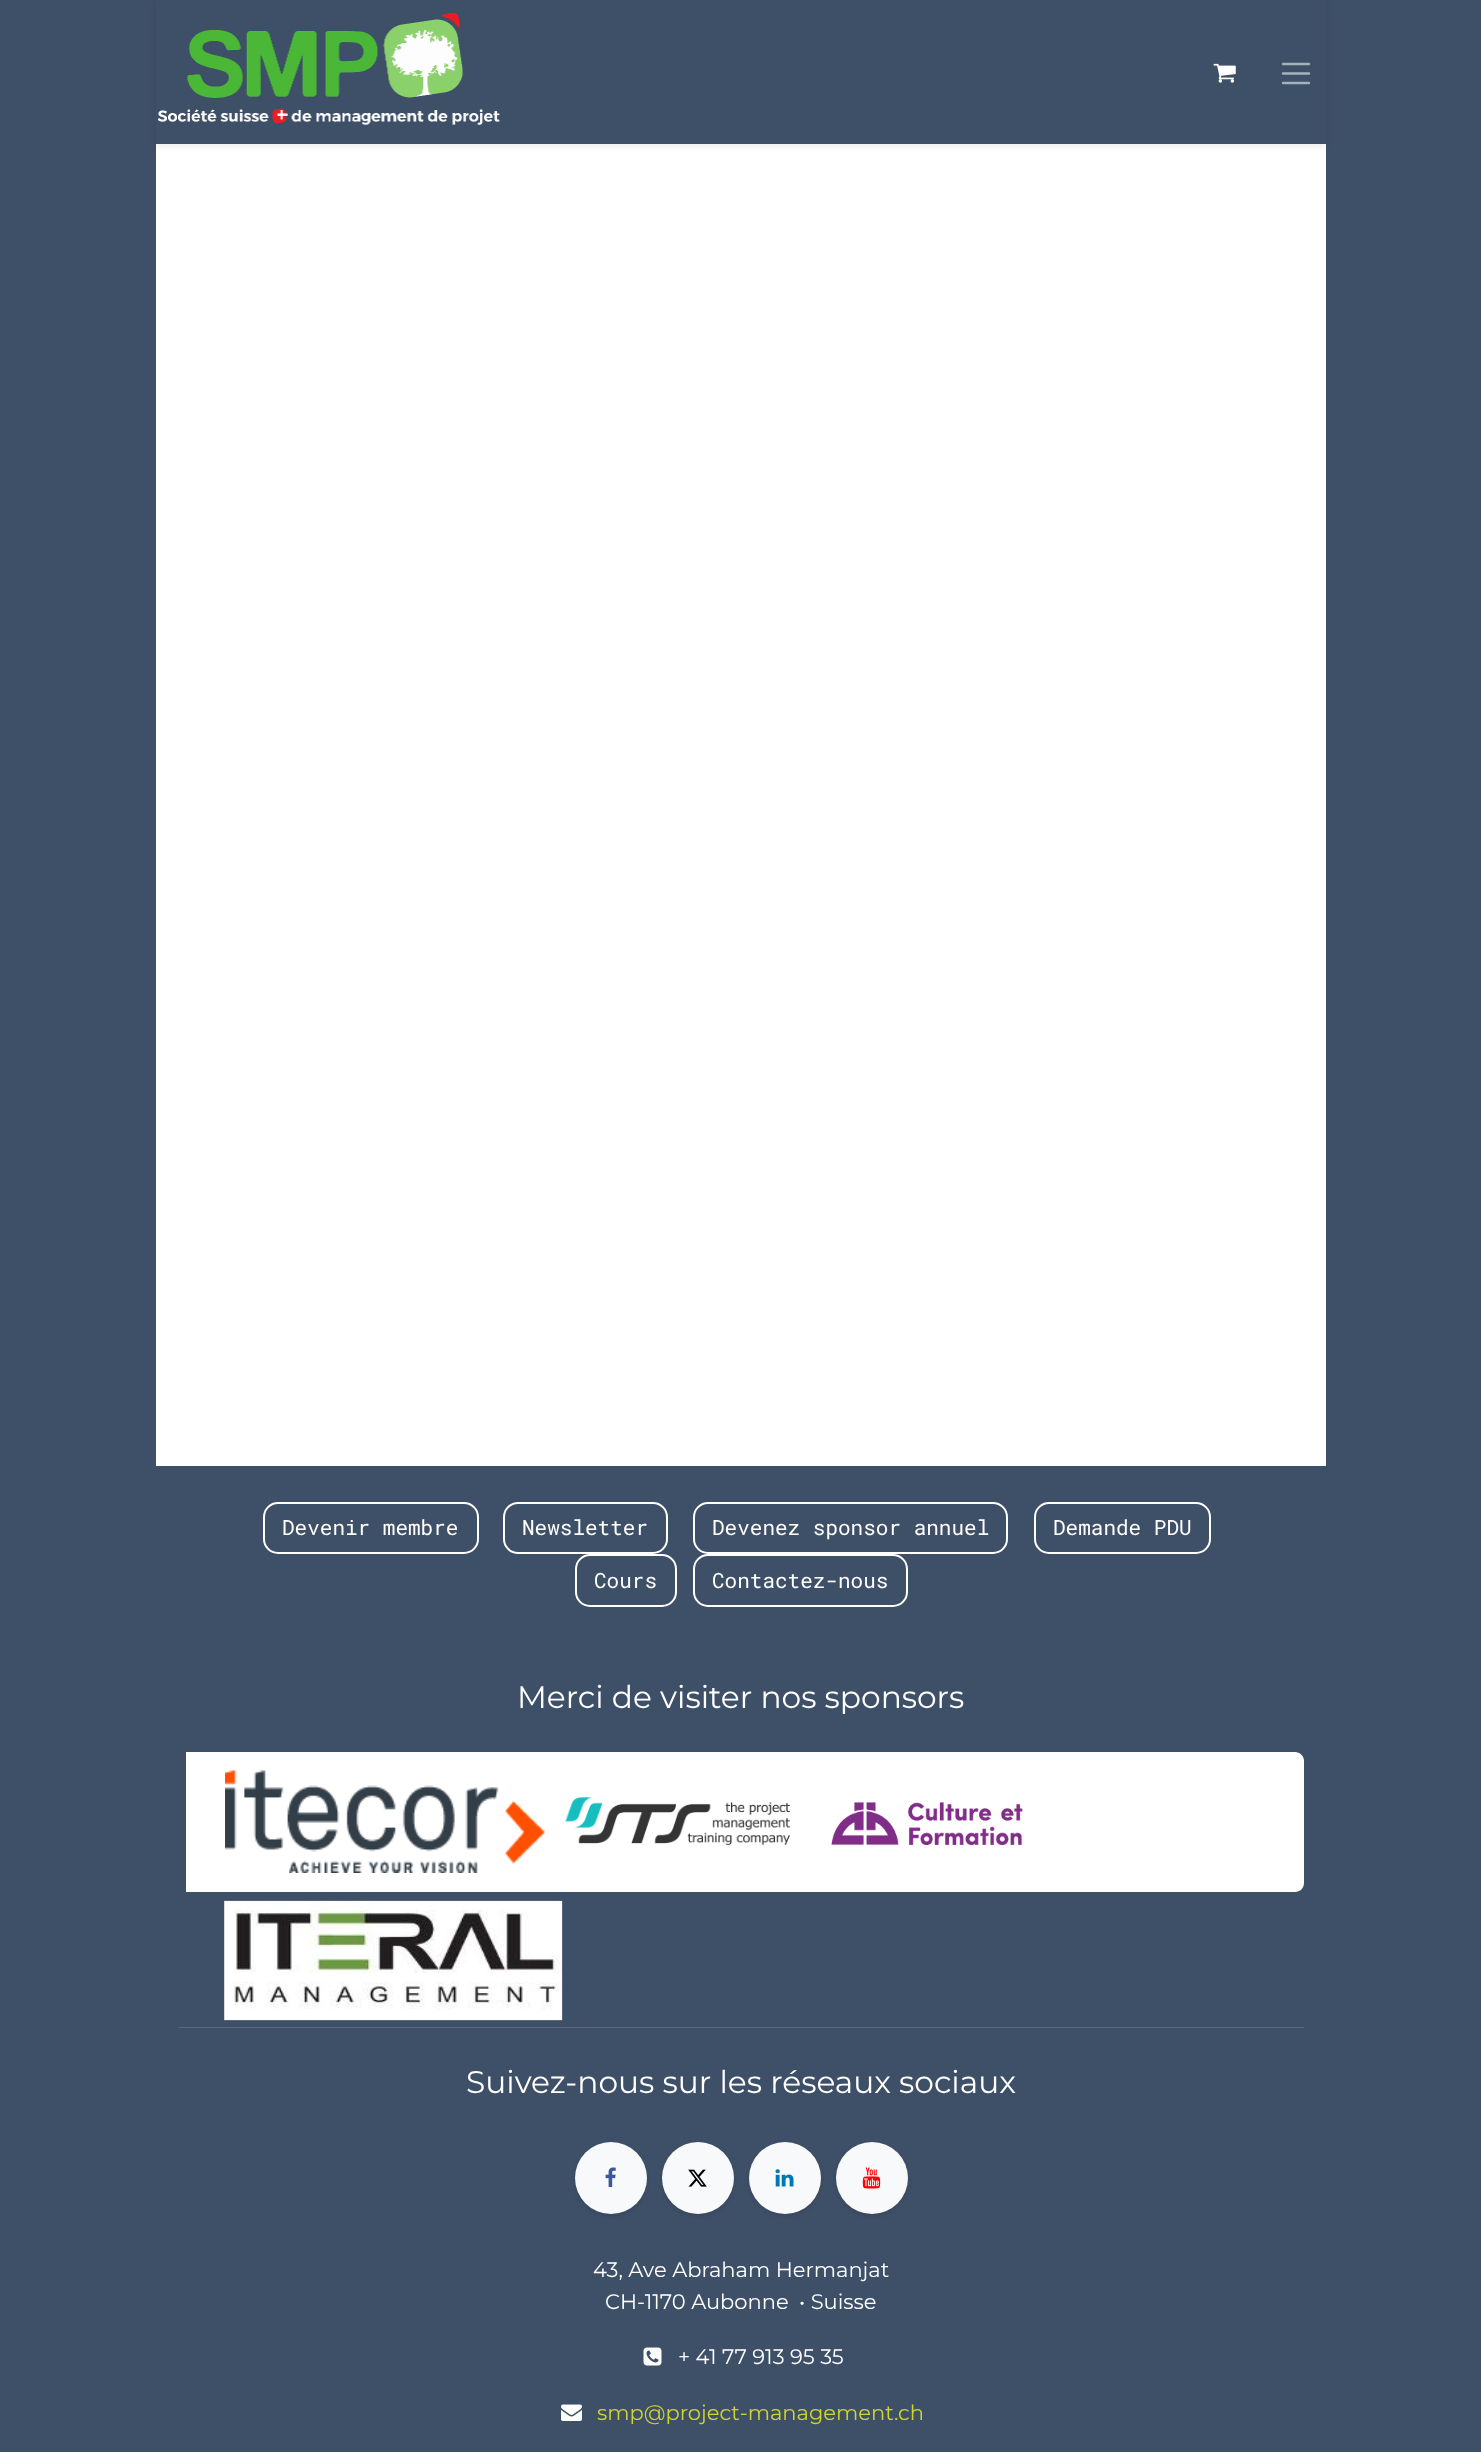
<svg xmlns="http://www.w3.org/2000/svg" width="1481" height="2452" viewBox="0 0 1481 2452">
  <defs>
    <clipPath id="clip1"><path d="M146 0H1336V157H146ZM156 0H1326V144H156Z" clip-rule="evenodd"/></clipPath>
  </defs>
  <rect width="100%" height="100%" fill="rgb(62,79,104)"/>
  <rect x="156" y="144" width="1170" height="1322" fill="rgb(255,255,255)"/>
  <g clip-path="url(#clip1)">
    <rect x="156" y="3" width="1170" height="144" fill="rgba(0,0,0,0.07)" filter="blur(3px)"/>
  </g>
  <image x="158" y="12" width="342" height="113" href="pic1.png"/>
  <image x="1213" y="63" width="23" height="20" href="pic2.png"/>
  <path d="M1283 64H1309M1283 73.5H1309M1283 83H1309" fill="none" stroke="rgb(168,176,187)" stroke-width="2.4" stroke-linecap="round"/>
  <rect x="264" y="1503" width="214" height="50" rx="14" fill="none" stroke="rgb(255,255,255)" stroke-width="2"/>
  <text x="282" y="1535" font-family="Roboto Mono" font-size="21" fill="rgb(255,255,255)">Devenir membre</text>
  <rect x="504" y="1503" width="163" height="50" rx="14" fill="none" stroke="rgb(255,255,255)" stroke-width="2"/>
  <text x="522" y="1535" font-family="Roboto Mono" font-size="21" fill="rgb(255,255,255)">Newsletter</text>
  <rect x="694" y="1503" width="313" height="50" rx="14" fill="none" stroke="rgb(255,255,255)" stroke-width="2"/>
  <text x="712" y="1535" font-family="Roboto Mono" font-size="21" fill="rgb(255,255,255)">Devenez sponsor annuel</text>
  <rect x="1035" y="1503" width="175" height="50" rx="14" fill="none" stroke="rgb(255,255,255)" stroke-width="2"/>
  <text x="1053" y="1535" font-family="Roboto Mono" font-size="21" fill="rgb(255,255,255)">Demande PDU</text>
  <rect x="576" y="1555" width="100" height="51" rx="14" fill="none" stroke="rgb(255,255,255)" stroke-width="2"/>
  <text x="594" y="1588" font-family="Roboto Mono" font-size="21" fill="rgb(255,255,255)">Cours</text>
  <rect x="694" y="1555" width="213" height="51" rx="14" fill="none" stroke="rgb(255,255,255)" stroke-width="2"/>
  <text x="712" y="1588" font-family="Roboto Mono" font-size="21" fill="rgb(255,255,255)">Contactez-nous</text>
  <text x="517" y="1708" font-family="Montserrat" font-size="31.25" fill="rgb(255,255,255)">Merci de visiter nos sponsors</text>
  <path d="M186 1752H1295C1300 1752 1304 1756 1304 1761V1883C1304 1888 1300 1892 1295 1892H186Z" fill="rgb(255,255,255)"/>
  <image x="225" y="1770" width="320" height="103" href="pic3.png"/>
  <image x="565" y="1797" width="225" height="48" href="pic4.png"/>
  <image x="831" y="1802" width="192" height="43" href="pic5.png"/>
  <image x="224" y="1900" width="339" height="121" href="pic6.png"/>
  <rect x="179" y="2027" width="1125" height="1" fill="rgb(91,105,127)"/>
  <text x="466" y="2093" font-family="Montserrat" font-size="31.25" fill="rgb(255,255,255)">Suivez-nous sur les réseaux sociaux</text>
  <rect x="575" y="2144" width="72" height="72" rx="36" fill="rgba(0,0,0,0.1)" filter="blur(2px)"/>
  <circle cx="611" cy="2178" r="36" fill="rgb(248,249,250)"/>
  <image x="605" y="2167" width="11" height="20" href="pic7.png"/>
  <rect x="662" y="2144" width="72" height="72" rx="36" fill="rgba(0,0,0,0.1)" filter="blur(2px)"/>
  <circle cx="698" cy="2178" r="36" fill="rgb(248,249,250)"/>
  <image x="688" y="2169" width="19" height="18" href="pic8.png"/>
  <rect x="749" y="2144" width="72" height="72" rx="36" fill="rgba(0,0,0,0.1)" filter="blur(2px)"/>
  <circle cx="785" cy="2178" r="36" fill="rgb(248,249,250)"/>
  <image x="775" y="2169" width="19" height="18" href="pic9.png"/>
  <rect x="836" y="2144" width="72" height="72" rx="36" fill="rgba(0,0,0,0.1)" filter="blur(2px)"/>
  <circle cx="872" cy="2178" r="36" fill="rgb(248,249,250)"/>
  <image x="862" y="2167" width="19" height="22" href="pic10.png"/>
  <g font-family="Montserrat" font-size="21" fill="rgb(255,255,255)">
    <text x="593" y="2277">43, Ave Abraham Hermanjat</text>
    <text x="605" y="2309">CH-1170 Aubonne</text>
    <text x="799" y="2309">• Suisse</text>
  </g>
  <image x="643" y="2347" width="19" height="19" href="pic11.png"/>
  <text x="678" y="2364" font-family="Montserrat" font-size="21" fill="rgb(255,255,255)">+ 41 77 913 95 35</text>
  <image x="561" y="2404" width="21" height="17" href="pic12.png"/>
  <text x="597" y="2420" font-family="Montserrat" font-size="21" fill="rgb(208,213,47)">smp@project-management.ch</text>
</svg>
